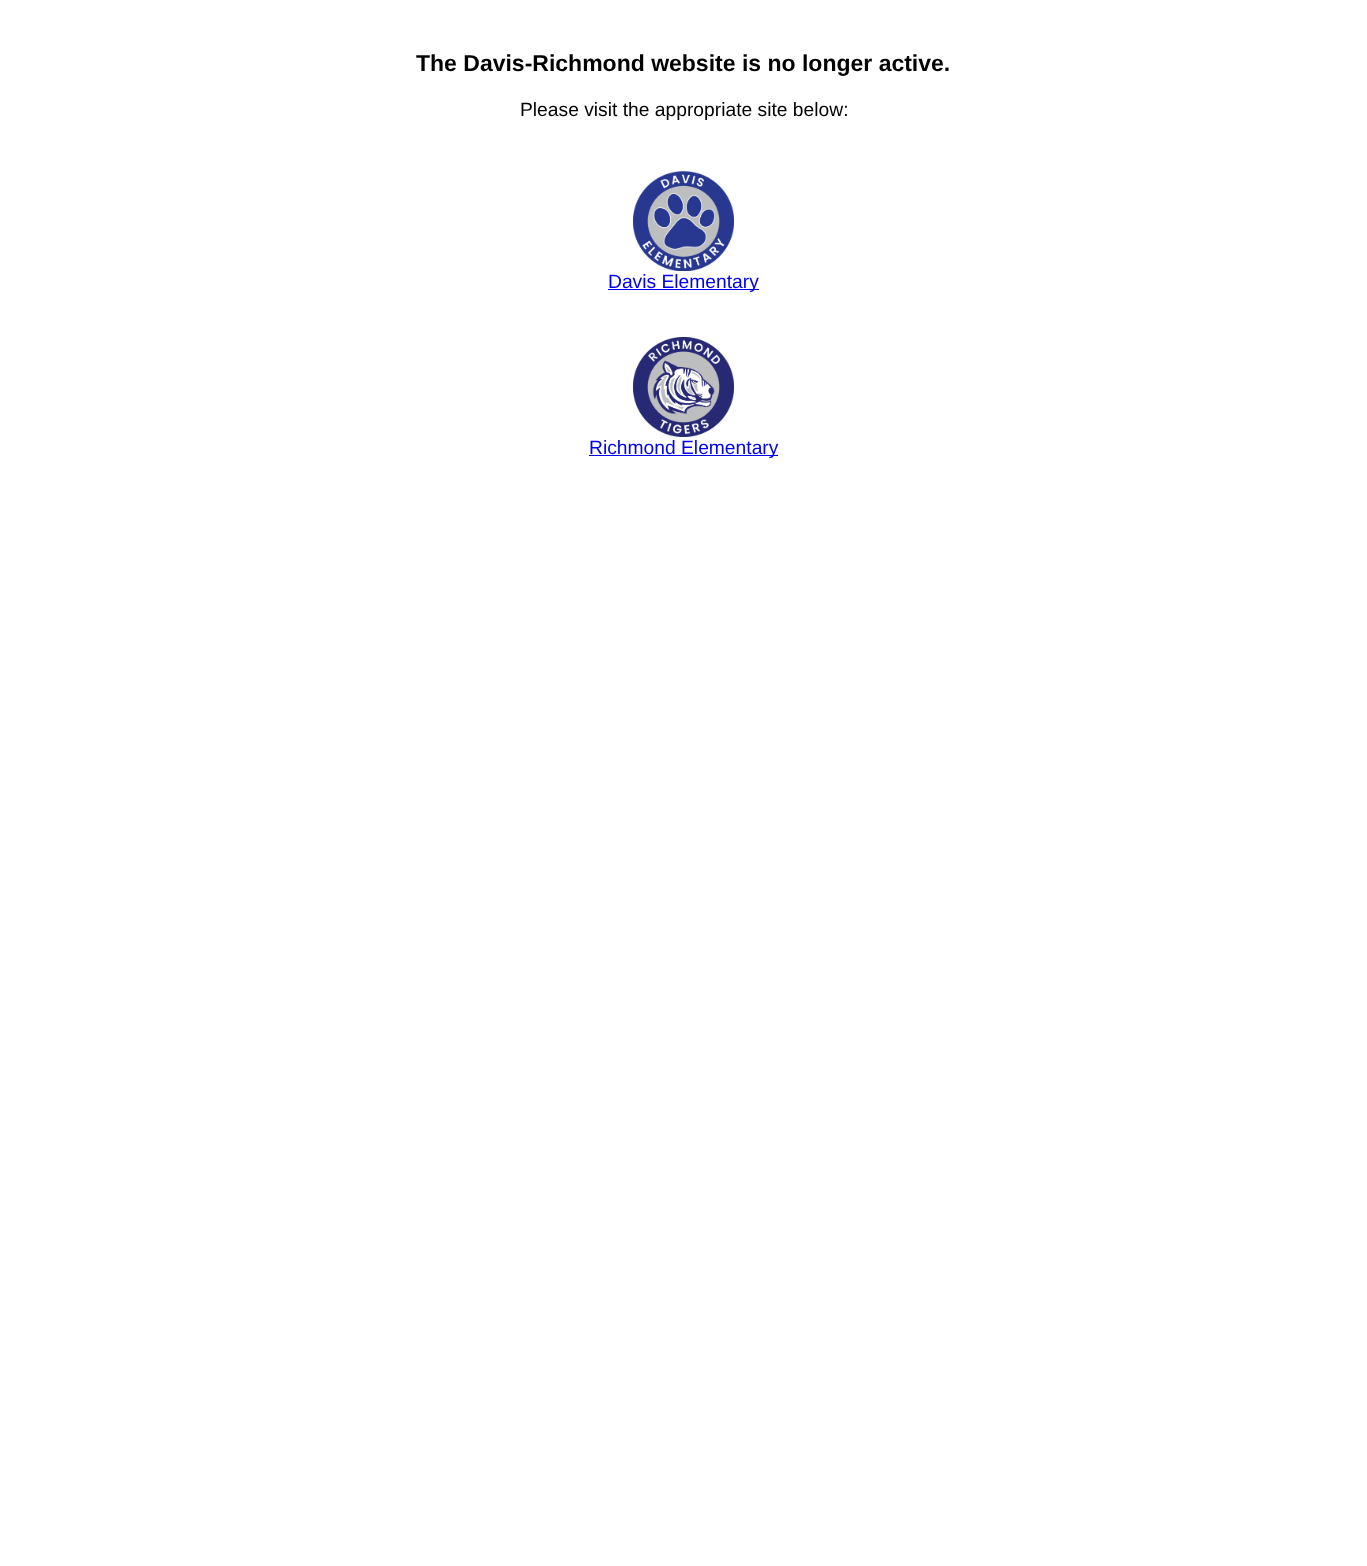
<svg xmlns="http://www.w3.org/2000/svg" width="1367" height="1566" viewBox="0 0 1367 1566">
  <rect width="100%" height="100%" fill="rgb(255,255,255)"/>
  <text x="416" y="71" font-family="Liberation Sans" font-size="23" font-weight="bold" fill="rgb(0,0,0)">The Davis-Richmond website is no longer active.</text>
  <text x="520" y="116" font-family="Liberation Sans" font-size="19.25" fill="rgb(0,0,0)">Please visit the appropriate site below:</text>
  <image x="633" y="171" width="101" height="100" href="pic1.png"/>
  <rect x="608" y="289" width="151" height="1" fill="rgb(0,0,238)"/>
  <text x="608" y="288" font-family="Liberation Sans" font-size="19.25" fill="rgb(0,0,238)">Davis Elementary</text>
  <image x="633" y="337" width="101" height="100" href="pic2.png"/>
  <rect x="589" y="455" width="189" height="1" fill="rgb(0,0,238)"/>
  <text x="589" y="454" font-family="Liberation Sans" font-size="19.25" fill="rgb(0,0,238)">Richmond Elementary</text>
</svg>
